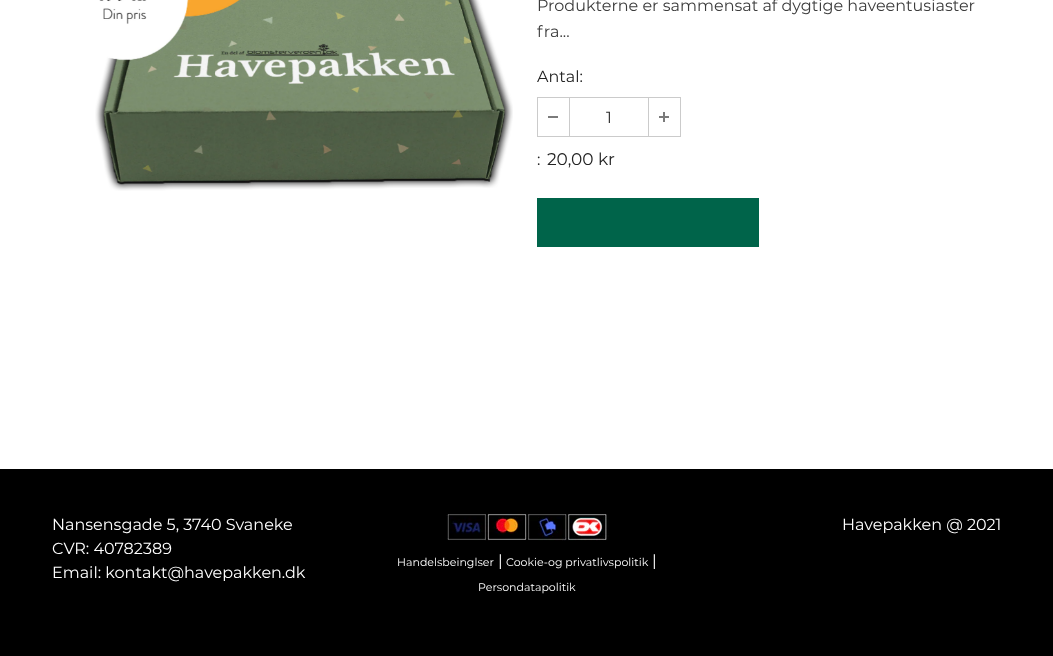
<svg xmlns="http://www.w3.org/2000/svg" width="1053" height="656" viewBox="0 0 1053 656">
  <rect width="100%" height="100%" fill="rgb(255,255,255)"/>
  <image x="95" y="0" width="418" height="191" href="pic1.png"/>
  <g font-family="Montserrat" font-size="16" fill="rgb(60,60,60)">
    <text>
      <tspan x="537" y="11">Produkterne er sammensat af dygtige haveentusiaster</tspan>
      <tspan x="537" y="37">fra...</tspan>
    </text>
  </g>
  <text x="537" y="82" font-family="Montserrat" font-size="16" fill="rgb(35,35,35)">Antal:</text>
  <rect x="537.5" y="97.5" width="143" height="39" fill="none" stroke="rgb(203,203,203)"/>
  <rect x="569" y="98" width="1" height="38" fill="rgb(203,203,203)"/>
  <rect x="548" y="116" width="10" height="2" fill="rgb(123,123,123)"/>
  <text x="606" y="123" font-family="Montserrat" font-size="16" fill="rgb(45,45,45)">1</text>
  <rect x="648" y="98" width="1" height="38" fill="rgb(203,203,203)"/>
  <rect x="659" y="116" width="10" height="2" fill="rgb(123,123,123)"/>
  <rect x="663" y="112" width="2" height="10" fill="rgb(123,123,123)"/>
  <text x="537" y="165" font-family="Montserrat" font-size="16" fill="rgb(35,35,35)">:</text>
  <text x="547" y="165" font-family="Montserrat" font-size="17" fill="rgb(35,35,35)">20,00 kr</text>
  <rect x="537" y="198" width="222" height="49" fill="rgb(0,100,74)"/>
  <rect x="0" y="469" width="1053" height="187" fill="rgb(0,0,0)"/>
  <g font-family="Montserrat" font-size="16" fill="rgb(255,255,255)">
    <text>
      <tspan x="52" y="530">Nansensgade 5, 3740 Svaneke</tspan>
      <tspan x="52" y="554">CVR: 40782389</tspan>
      <tspan x="52" y="578">Email: kontakt@havepakken.dk</tspan>
    </text>
    <text x="842" y="530">Havepakken @ 2021</text>
  </g>
  <image x="446" y="513" width="163" height="28" href="pic2.png"/>
  <text x="397" y="566" font-family="Montserrat" font-size="11" fill="rgb(255,255,255)">Handelsbeinglser</text>
  <text x="498" y="566" font-family="Montserrat" font-size="16" fill="rgb(255,255,255)">|</text>
  <text x="506" y="566" font-family="Montserrat" font-size="11" fill="rgb(255,255,255)">Cookie-og privatlivspolitik</text>
  <text x="652" y="566" font-family="Montserrat" font-size="16" fill="rgb(255,255,255)">|</text>
  <text x="478" y="591" font-family="Montserrat" font-size="11" fill="rgb(255,255,255)">Persondatapolitik</text>
</svg>
